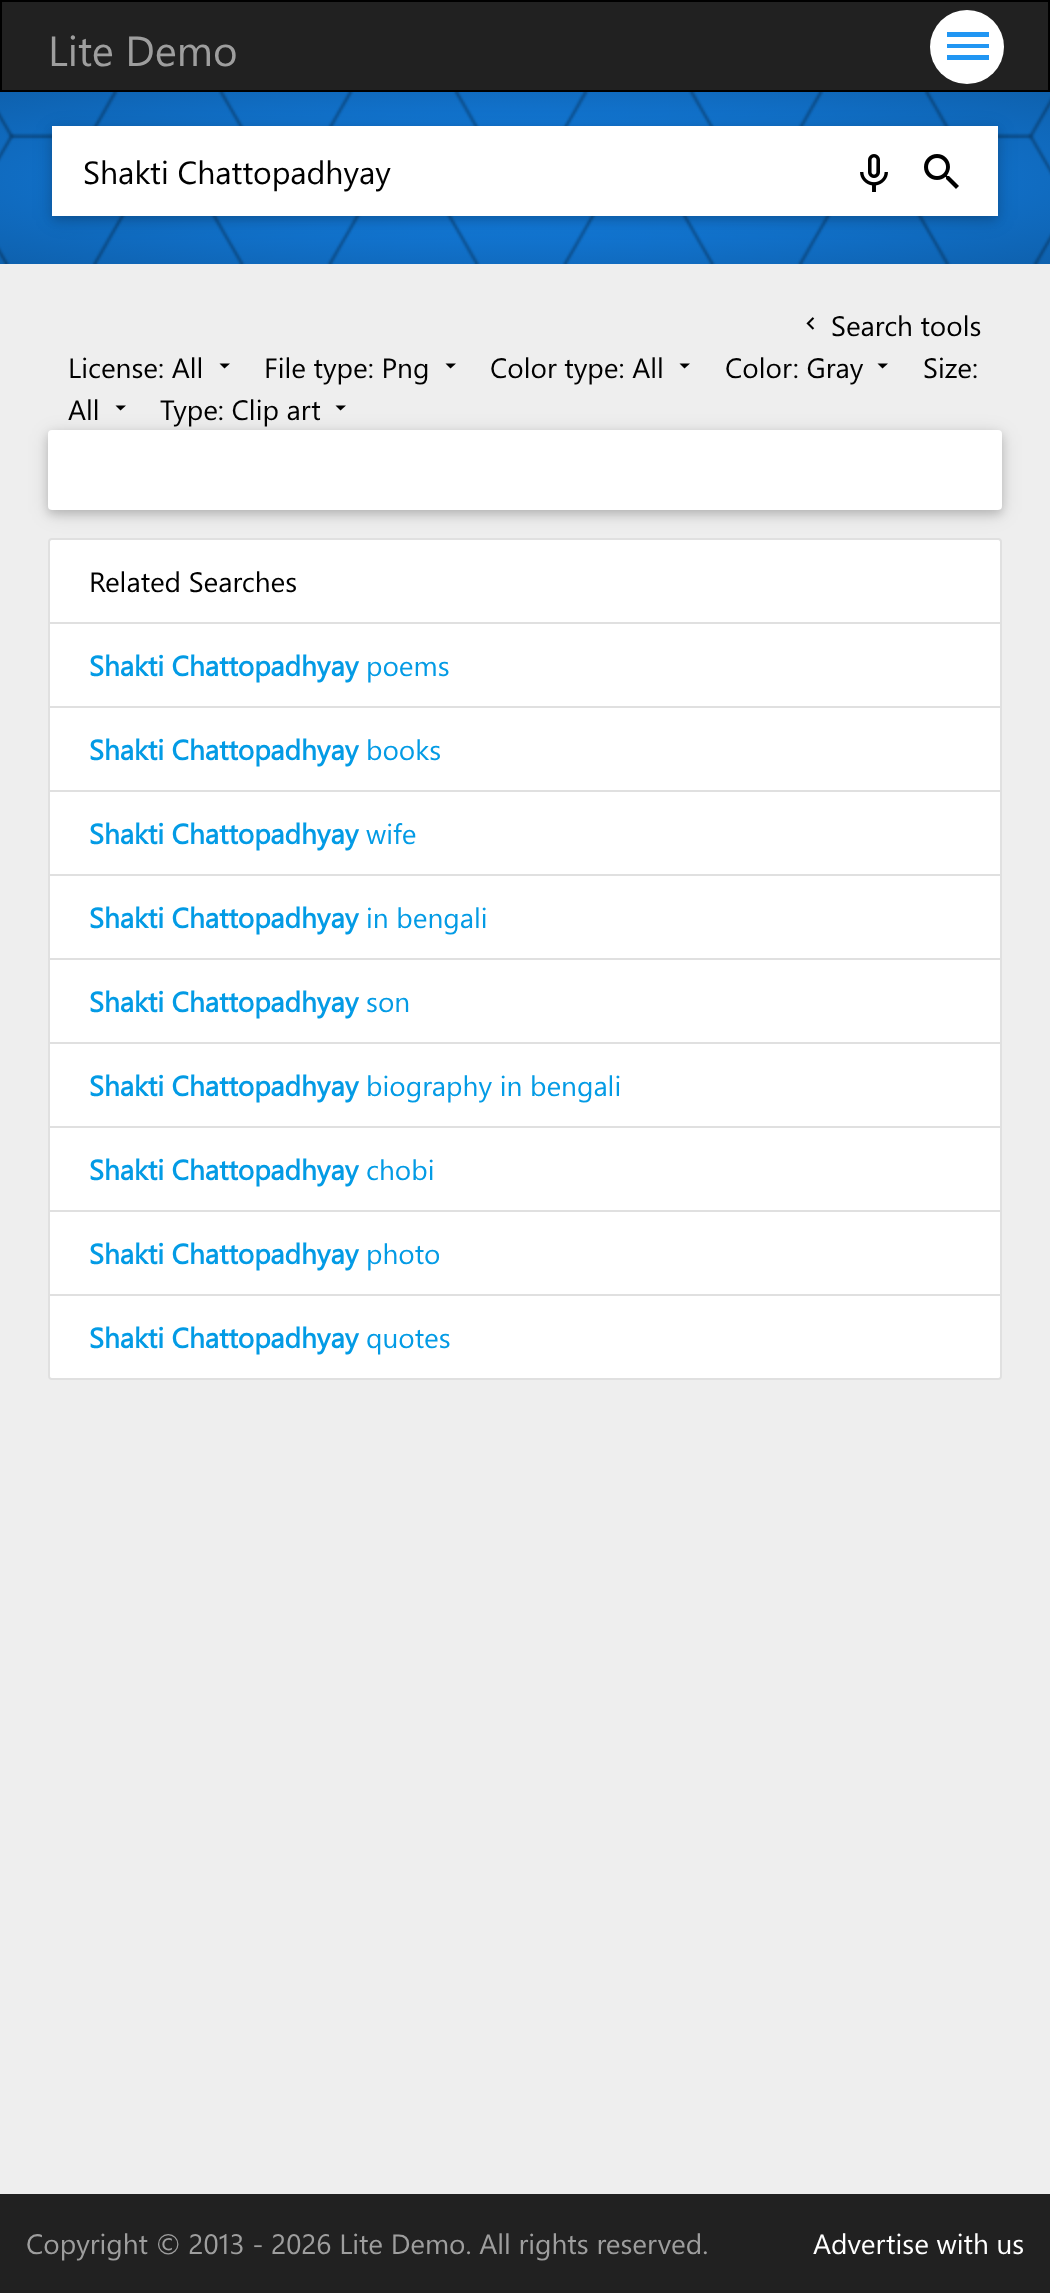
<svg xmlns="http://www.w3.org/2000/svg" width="1050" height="2293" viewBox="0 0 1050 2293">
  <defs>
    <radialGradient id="g1" gradientUnits="userSpaceOnUse" cx="0" cy="0" r="1" gradientTransform="matrix(742 0 0 122 525 178)"><stop offset="0" stop-color="rgb(21,133,237)"/><stop offset="1" stop-color="rgb(14,97,174)"/></radialGradient>
  </defs>
  <rect width="100%" height="100%" fill="rgb(238,238,238)"/>
  <rect x="1" y="1" width="1048" height="90" fill="rgb(33,33,33)" stroke="rgb(0,0,0)" stroke-width="2"/>
  <text x="48" y="66" font-family="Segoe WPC" font-size="42" fill="rgb(158,158,158)">Lite Demo</text>
  <circle cx="967" cy="47" r="37" fill="rgb(255,255,255)"/>
  <path d="M947 32H989V37H947ZM947 48V44H989V48ZM947 60V55H989V60Z" fill="rgb(33,150,243)"/>
  <rect x="0" y="92" width="1050" height="172" fill="url(#g1)"/>
  <image x="0" y="92" width="1050" height="172" href="pic1.png"/>
  <rect x="52" y="130" width="946" height="90" rx="4" fill="rgba(0,0,0,0.12)" filter="blur(10px)"/>
  <rect x="52" y="130" width="946" height="90" rx="4" fill="rgba(0,0,0,0.16)" filter="blur(5px)"/>
  <rect x="52" y="126" width="946" height="90" fill="rgb(255,255,255)"/>
  <text x="83" y="184" font-family="Segoe WPC" font-size="32" fill="rgb(0,0,0)">Shakti Chattopadhyay</text>
  <image x="860" y="154" width="28" height="38" href="pic2.png"/>
  <image x="924" y="154" width="35" height="35" href="pic3.png"/>
  <image x="806" y="317" width="9" height="13" href="pic4.png"/>
  <g font-family="Segoe WPC" font-size="28" fill="rgb(0,0,0)">
    <text x="831" y="336">Search tools</text>
    <text x="923" y="378">Size:</text>
    <text x="68" y="420">All</text>
  </g>
  <path d="M115.5 405.5H126L120.5 410.5Z" fill="rgb(0,0,0)"/>
  <text x="68" y="378" font-family="Segoe WPC" font-size="28" fill="rgb(0,0,0)">License: All</text>
  <path d="M219.5 363.5H230L224.5 368.5Z" fill="rgb(0,0,0)"/>
  <text x="264" y="378" font-family="Segoe WPC" font-size="28" fill="rgb(0,0,0)">File type: Png</text>
  <path d="M445.5 363.5H456L450.5 368.5Z" fill="rgb(0,0,0)"/>
  <text x="490" y="378" font-family="Segoe WPC" font-size="28" fill="rgb(0,0,0)">Color type: All</text>
  <path d="M679.5 363.5H690L684.5 368.5Z" fill="rgb(0,0,0)"/>
  <text x="725" y="378" font-family="Segoe WPC" font-size="28" fill="rgb(0,0,0)">Color: Gray</text>
  <path d="M877.5 363.5H888L882.5 368.5Z" fill="rgb(0,0,0)"/>
  <text x="160" y="420" font-family="Segoe WPC" font-size="28" fill="rgb(0,0,0)">Type: Clip art</text>
  <path d="M335.5 405.5H346L340.5 410.5Z" fill="rgb(0,0,0)"/>
  <rect x="48" y="434" width="954" height="80" rx="4" fill="rgba(0,0,0,0.12)" filter="blur(10px)"/>
  <rect x="48" y="434" width="954" height="80" rx="4" fill="rgba(0,0,0,0.16)" filter="blur(5px)"/>
  <rect x="48" y="430" width="954" height="80" rx="4" fill="rgb(255,255,255)"/>
  <rect x="49" y="539" width="952" height="840" rx="3" fill="none" stroke="rgb(224,224,224)" stroke-width="2"/>
  <path d="M52 540H998C999 540 1000 541 1000 542V624H50V542C50 541 51 540 52 540Z" fill="rgb(255,255,255)"/>
  <rect x="50" y="622" width="950" height="2" fill="rgb(224,224,224)"/>
  <text x="89" y="592" font-family="Segoe WPC" font-size="28" fill="rgb(0,0,0)">Related Searches</text>
  <rect x="50" y="624" width="950" height="82" fill="rgb(255,255,255)"/>
  <rect x="50" y="706" width="950" height="2" fill="rgb(224,224,224)"/>
  <text x="89" y="676" font-family="Segoe WPC" font-size="28" font-weight="bold" fill="rgb(3,155,229)">Shakti Chattopadhyay</text>
  <text x="366" y="676" font-family="Segoe WPC" font-size="28" fill="rgb(3,155,229)">poems</text>
  <rect x="50" y="708" width="950" height="82" fill="rgb(255,255,255)"/>
  <rect x="50" y="790" width="950" height="2" fill="rgb(224,224,224)"/>
  <text x="89" y="760" font-family="Segoe WPC" font-size="28" font-weight="bold" fill="rgb(3,155,229)">Shakti Chattopadhyay</text>
  <text x="366" y="760" font-family="Segoe WPC" font-size="28" fill="rgb(3,155,229)">books</text>
  <rect x="50" y="792" width="950" height="82" fill="rgb(255,255,255)"/>
  <rect x="50" y="874" width="950" height="2" fill="rgb(224,224,224)"/>
  <text x="89" y="844" font-family="Segoe WPC" font-size="28" font-weight="bold" fill="rgb(3,155,229)">Shakti Chattopadhyay</text>
  <text x="366" y="844" font-family="Segoe WPC" font-size="28" fill="rgb(3,155,229)">wife</text>
  <rect x="50" y="876" width="950" height="82" fill="rgb(255,255,255)"/>
  <rect x="50" y="958" width="950" height="2" fill="rgb(224,224,224)"/>
  <text x="89" y="928" font-family="Segoe WPC" font-size="28" font-weight="bold" fill="rgb(3,155,229)">Shakti Chattopadhyay</text>
  <text x="366" y="928" font-family="Segoe WPC" font-size="28" fill="rgb(3,155,229)">in bengali</text>
  <rect x="50" y="960" width="950" height="82" fill="rgb(255,255,255)"/>
  <rect x="50" y="1042" width="950" height="2" fill="rgb(224,224,224)"/>
  <text x="89" y="1012" font-family="Segoe WPC" font-size="28" font-weight="bold" fill="rgb(3,155,229)">Shakti Chattopadhyay</text>
  <text x="366" y="1012" font-family="Segoe WPC" font-size="28" fill="rgb(3,155,229)">son</text>
  <rect x="50" y="1044" width="950" height="82" fill="rgb(255,255,255)"/>
  <rect x="50" y="1126" width="950" height="2" fill="rgb(224,224,224)"/>
  <text x="89" y="1096" font-family="Segoe WPC" font-size="28" font-weight="bold" fill="rgb(3,155,229)">Shakti Chattopadhyay</text>
  <text x="366" y="1096" font-family="Segoe WPC" font-size="28" fill="rgb(3,155,229)">biography in bengali</text>
  <rect x="50" y="1128" width="950" height="82" fill="rgb(255,255,255)"/>
  <rect x="50" y="1210" width="950" height="2" fill="rgb(224,224,224)"/>
  <text x="89" y="1180" font-family="Segoe WPC" font-size="28" font-weight="bold" fill="rgb(3,155,229)">Shakti Chattopadhyay</text>
  <text x="366" y="1180" font-family="Segoe WPC" font-size="28" fill="rgb(3,155,229)">chobi</text>
  <rect x="50" y="1212" width="950" height="82" fill="rgb(255,255,255)"/>
  <rect x="50" y="1294" width="950" height="2" fill="rgb(224,224,224)"/>
  <text x="89" y="1264" font-family="Segoe WPC" font-size="28" font-weight="bold" fill="rgb(3,155,229)">Shakti Chattopadhyay</text>
  <text x="366" y="1264" font-family="Segoe WPC" font-size="28" fill="rgb(3,155,229)">photo</text>
  <path d="M50 1296H1000V1376C1000 1377 999 1378 998 1378H52C51 1378 50 1377 50 1376Z" fill="rgb(255,255,255)"/>
  <text x="89" y="1348" font-family="Segoe WPC" font-size="28" font-weight="bold" fill="rgb(3,155,229)">Shakti Chattopadhyay</text>
  <text x="366" y="1348" font-family="Segoe WPC" font-size="28" fill="rgb(3,155,229)">quotes</text>
  <rect x="0" y="2194" width="1050" height="99" fill="rgb(33,33,33)"/>
  <text x="26" y="2254" font-family="Segoe WPC" font-size="28" fill="rgb(158,158,158)">Copyright © 2013 - 2026 Lite Demo. All rights reserved.</text>
  <text x="813" y="2254" font-family="Segoe WPC" font-size="28" fill="rgb(255,255,255)">Advertise with us</text>
</svg>
